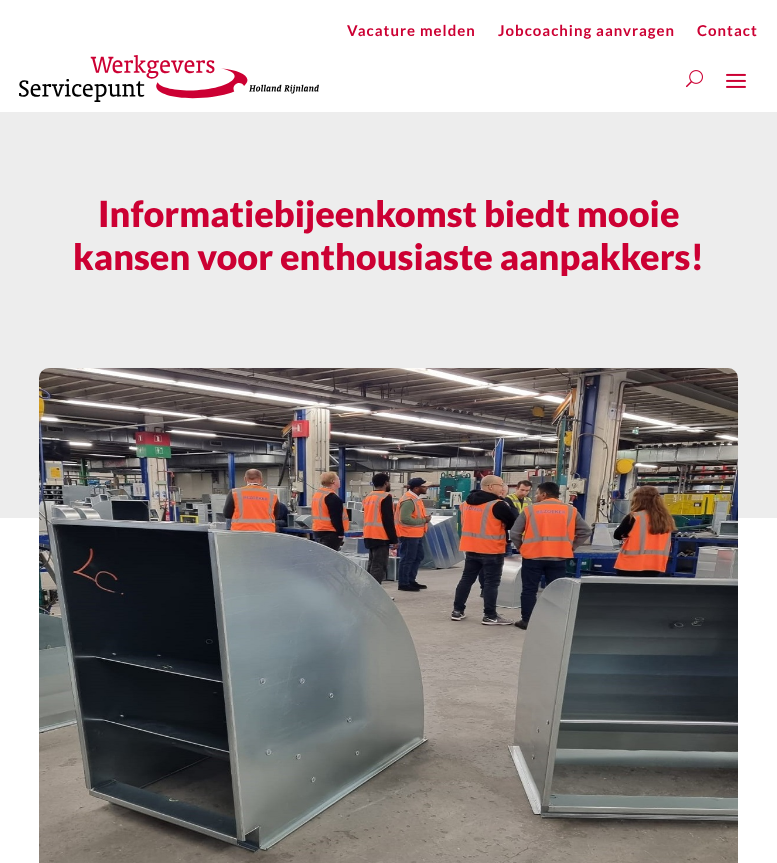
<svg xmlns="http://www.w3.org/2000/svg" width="777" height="863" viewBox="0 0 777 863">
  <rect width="100%" height="100%" fill="rgb(255,255,255)"/>
  <g font-family="Lato" font-size="15" font-weight="bold" letter-spacing="1" fill="rgb(204,0,51)">
    <text x="347" y="36">Vacature melden</text>
    <text x="498" y="36">Jobcoaching aanvragen</text>
    <text x="697" y="36">Contact</text>
  </g>
  <image x="19" y="55" width="300" height="47" href="pic1.png"/>
  <image x="686" y="70" width="17" height="18" href="pic2.png"/>
  <image x="726" y="73" width="20" height="15" href="pic3.png"/>
  <rect x="0" y="112" width="777" height="406" fill="rgb(237,237,237)"/>
  <g font-family="Lato" font-size="36" font-weight="900" fill="rgb(204,0,51)">
    <text x="98" y="227">Informatiebijeenkomst biedt mooie</text>
    <text x="73" y="270">kansen voor enthousiaste aanpakkers!</text>
  </g>
  <image x="39" y="368" width="699" height="495" href="pic4.png"/>
</svg>
